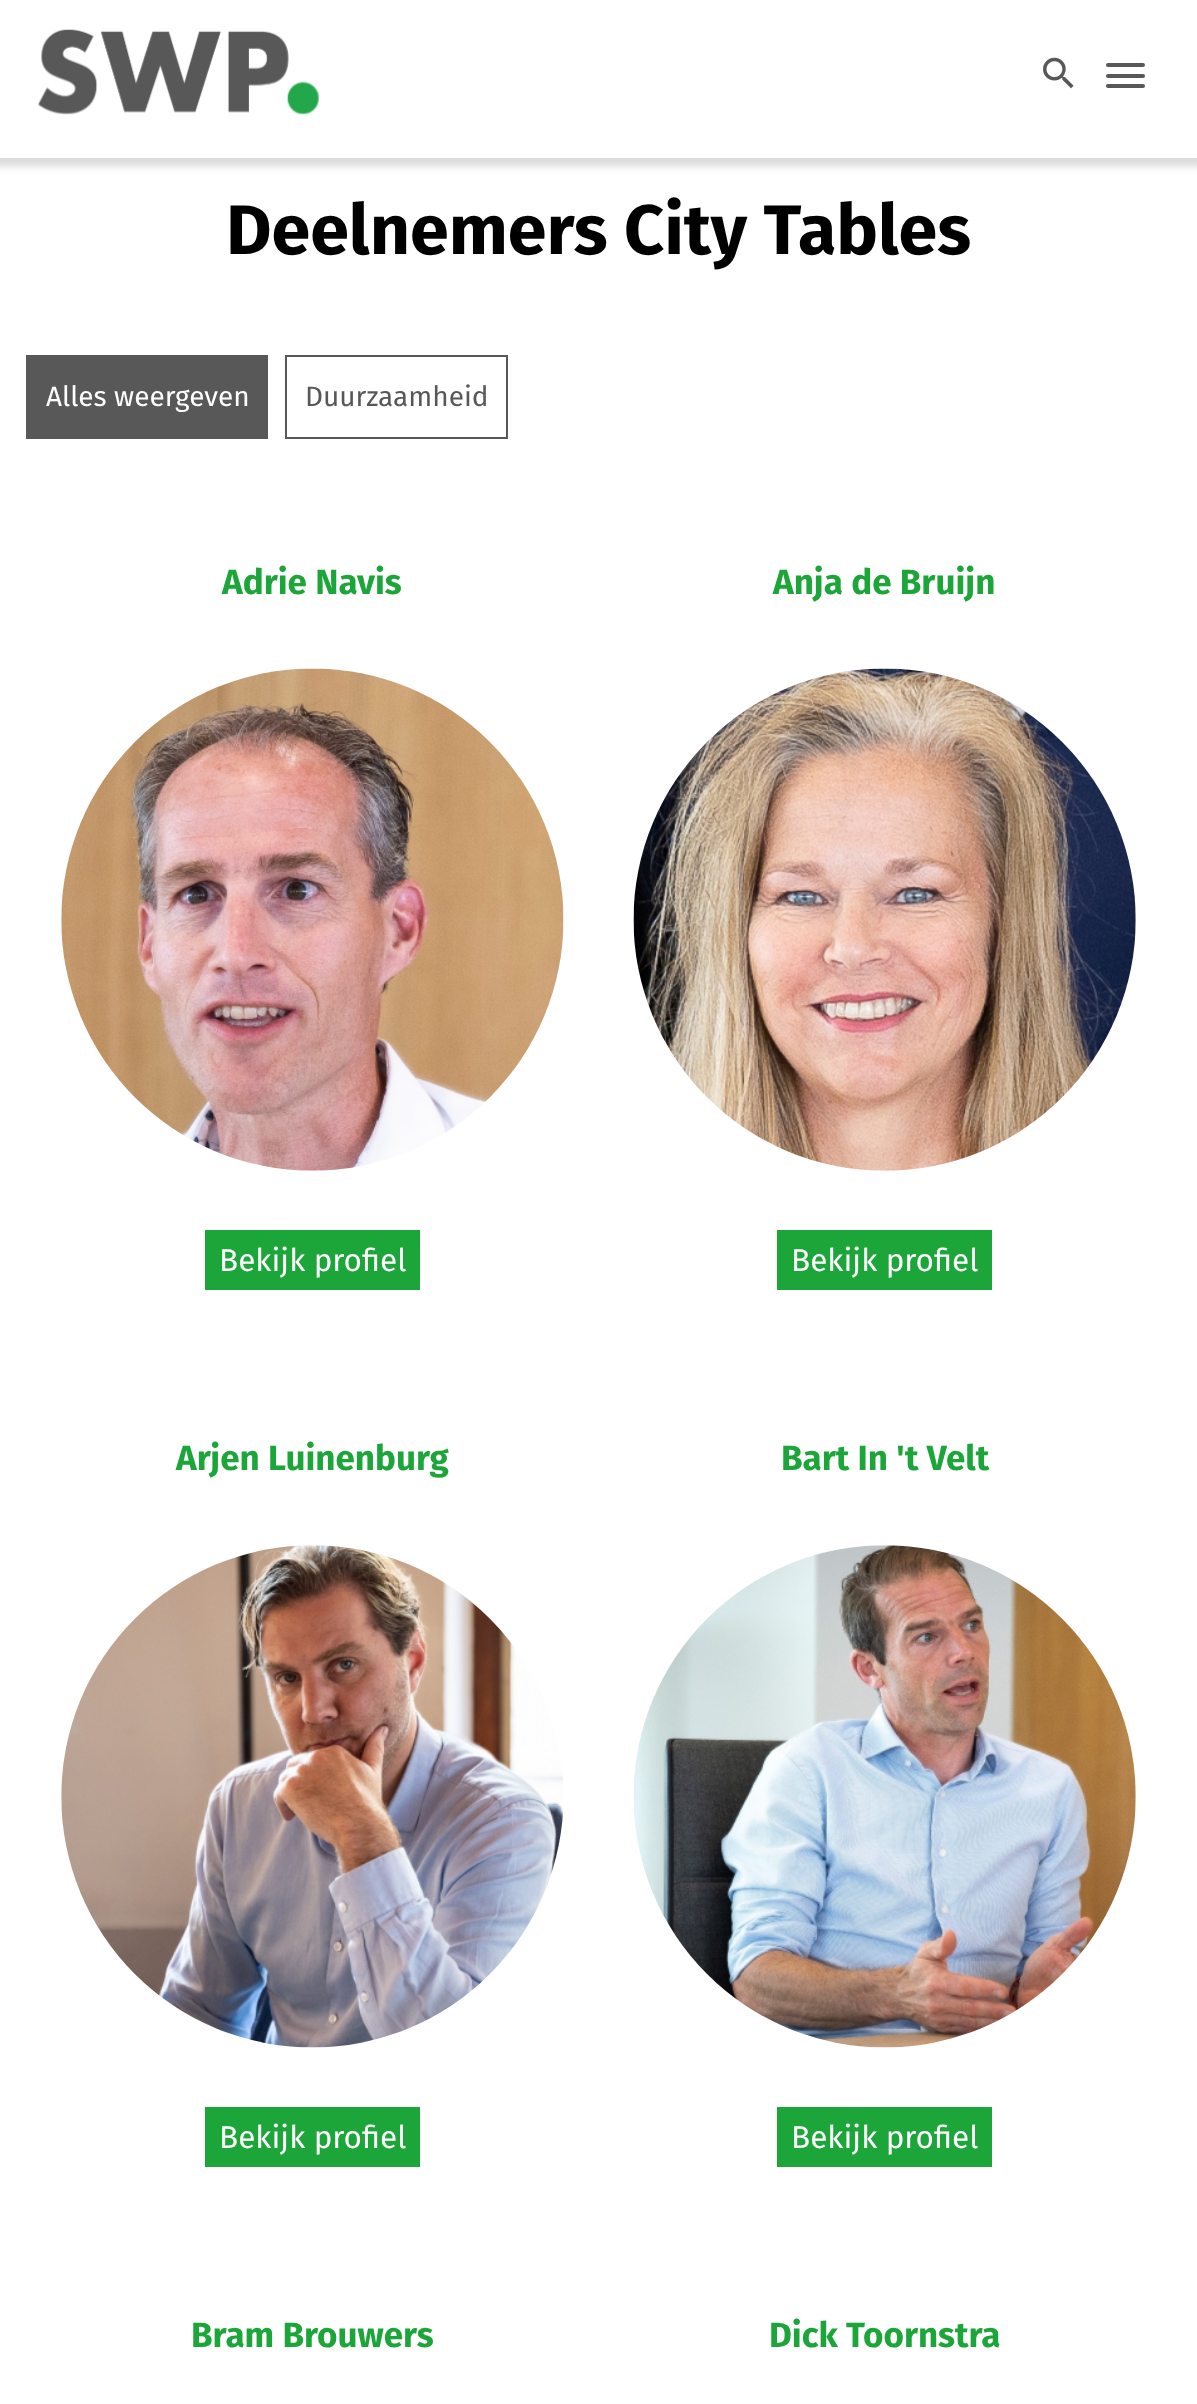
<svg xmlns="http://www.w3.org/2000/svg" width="1197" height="2404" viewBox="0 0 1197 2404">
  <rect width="100%" height="100%" fill="rgb(255,255,255)"/>
  <rect x="-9" y="-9" width="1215" height="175" fill="rgba(64,64,64,0.2)" filter="blur(4.5px)"/>
  <rect x="0" y="0" width="1197" height="158" fill="rgb(255,255,255)"/>
  <image x="38" y="29" width="281" height="86" href="pic1.png"/>
  <image x="1043" y="57" width="31" height="32" href="pic2.png"/>
  <rect x="1106" y="63" width="39" height="4" rx="2" fill="rgb(87,88,87)"/>
  <rect x="1106" y="74" width="39" height="4" rx="2" fill="rgb(87,88,87)"/>
  <rect x="1106" y="84" width="39" height="4" rx="2" fill="rgb(87,88,87)"/>
  <text x="226" y="254" font-family="Fira Sans" font-size="70" font-weight="bold" fill="rgb(0,0,0)">Deelnemers City Tables</text>
  <rect x="26" y="355" width="242" height="84" fill="rgb(87,88,87)"/>
  <text x="46" y="406" font-family="Fira Sans" font-size="28" fill="rgb(255,255,255)">Alles weergeven</text>
  <rect x="286" y="356" width="221" height="82" fill="none" stroke="rgb(87,88,87)" stroke-width="2"/>
  <text x="305" y="406" font-family="Fira Sans" font-size="28" fill="rgb(87,88,87)">Duurzaamheid</text>
  <text x="222" y="594" font-family="Fira Sans" font-size="35" font-weight="bold" fill="rgb(28,165,56)">Adrie Navis</text>
  <image x="61" y="668" width="503" height="503" href="pic3.png"/>
  <rect x="205" y="1230" width="215" height="60" fill="rgb(28,165,56)"/>
  <text x="219" y="1271" font-family="Fira Sans" font-size="31.5" fill="rgb(255,255,255)">Bekijk profiel</text>
  <text x="773" y="594" font-family="Fira Sans" font-size="35" font-weight="bold" fill="rgb(28,165,56)">Anja de Bruijn</text>
  <image x="633" y="668" width="503" height="503" href="pic4.png"/>
  <rect x="777" y="1230" width="215" height="60" fill="rgb(28,165,56)"/>
  <text x="791" y="1271" font-family="Fira Sans" font-size="31.5" fill="rgb(255,255,255)">Bekijk profiel</text>
  <text x="176" y="1470" font-family="Fira Sans" font-size="35" font-weight="bold" fill="rgb(28,165,56)">Arjen Luinenburg</text>
  <image x="61" y="1545" width="502" height="503" href="pic5.png"/>
  <rect x="205" y="2107" width="215" height="60" fill="rgb(28,165,56)"/>
  <text x="219" y="2148" font-family="Fira Sans" font-size="31.5" fill="rgb(255,255,255)">Bekijk profiel</text>
  <text x="781" y="1470" font-family="Fira Sans" font-size="35" font-weight="bold" fill="rgb(28,165,56)">Bart In 't Velt</text>
  <image x="633" y="1545" width="503" height="503" href="pic6.png"/>
  <rect x="777" y="2107" width="215" height="60" fill="rgb(28,165,56)"/>
  <text x="791" y="2148" font-family="Fira Sans" font-size="31.5" fill="rgb(255,255,255)">Bekijk profiel</text>
  <g font-family="Fira Sans" font-size="35" font-weight="bold" fill="rgb(28,165,56)">
    <text x="191" y="2347">Bram Brouwers</text>
    <text x="769" y="2347">Dick Toornstra</text>
  </g>
</svg>
